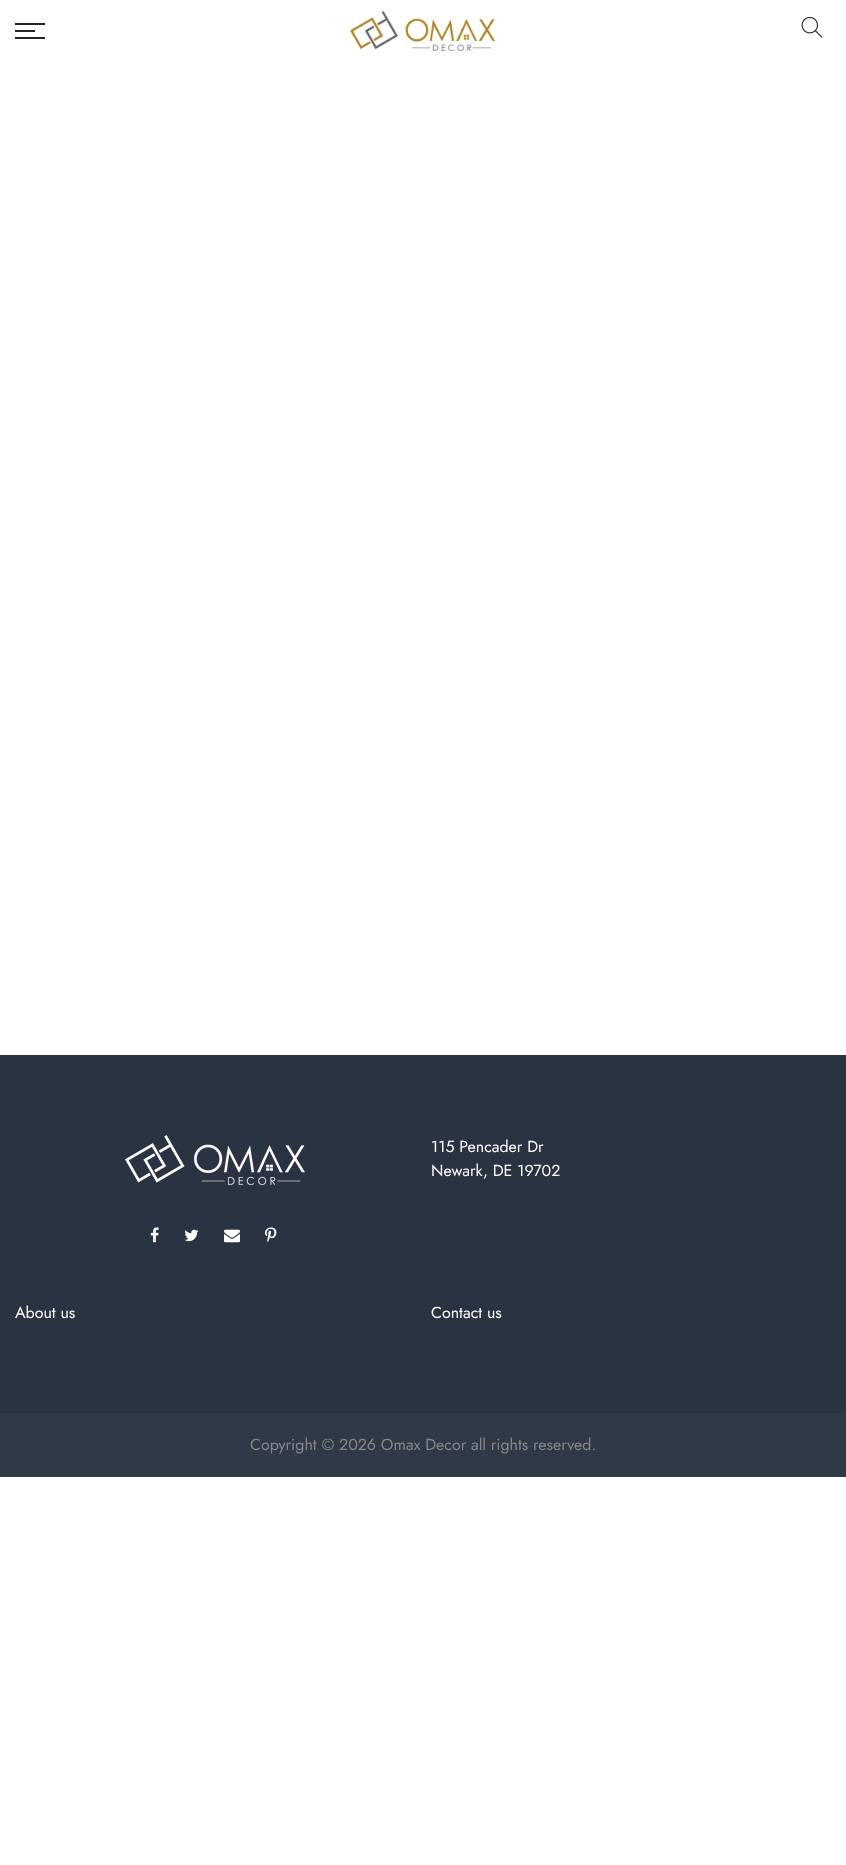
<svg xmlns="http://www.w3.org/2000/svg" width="846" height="1865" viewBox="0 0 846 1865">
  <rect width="100%" height="100%" fill="rgb(255,255,255)"/>
  <rect x="15" y="23" width="30" height="2" fill="rgb(34,34,34)"/>
  <rect x="15" y="30" width="20" height="2" fill="rgb(34,34,34)"/>
  <rect x="15" y="37" width="30" height="2" fill="rgb(34,34,34)"/>
  <image x="350" y="11" width="145" height="40" href="pic1.png"/>
  <image x="801" y="16" width="22" height="22" href="pic2.png"/>
  <rect x="0" y="1055" width="846" height="358" fill="rgb(41,51,65)"/>
  <image x="125" y="1135" width="180" height="50" href="pic3.png"/>
  <image x="150" y="1227" width="9" height="16" href="pic4.png"/>
  <image x="184" y="1229" width="15" height="13" href="pic5.png"/>
  <image x="224" y="1229" width="16" height="14" href="pic6.png"/>
  <image x="265" y="1227" width="12" height="16" href="pic7.png"/>
  <g font-family="Jost" font-size="16" fill="rgb(255,255,255)">
    <text>
      <tspan x="431" y="1152">115 Pencader Dr</tspan>
      <tspan x="431" y="1176">Newark, DE 19702</tspan>
    </text>
    <text x="15" y="1318">About us</text>
    <text x="431" y="1318">Contact us</text>
  </g>
  <rect x="0" y="1413" width="846" height="64" fill="rgb(47,57,72)"/>
  <text x="250" y="1450" font-family="Jost" font-size="16" fill="rgb(135,135,135)">Copyright © 2026 Omax Decor all rights reserved.</text>
</svg>
